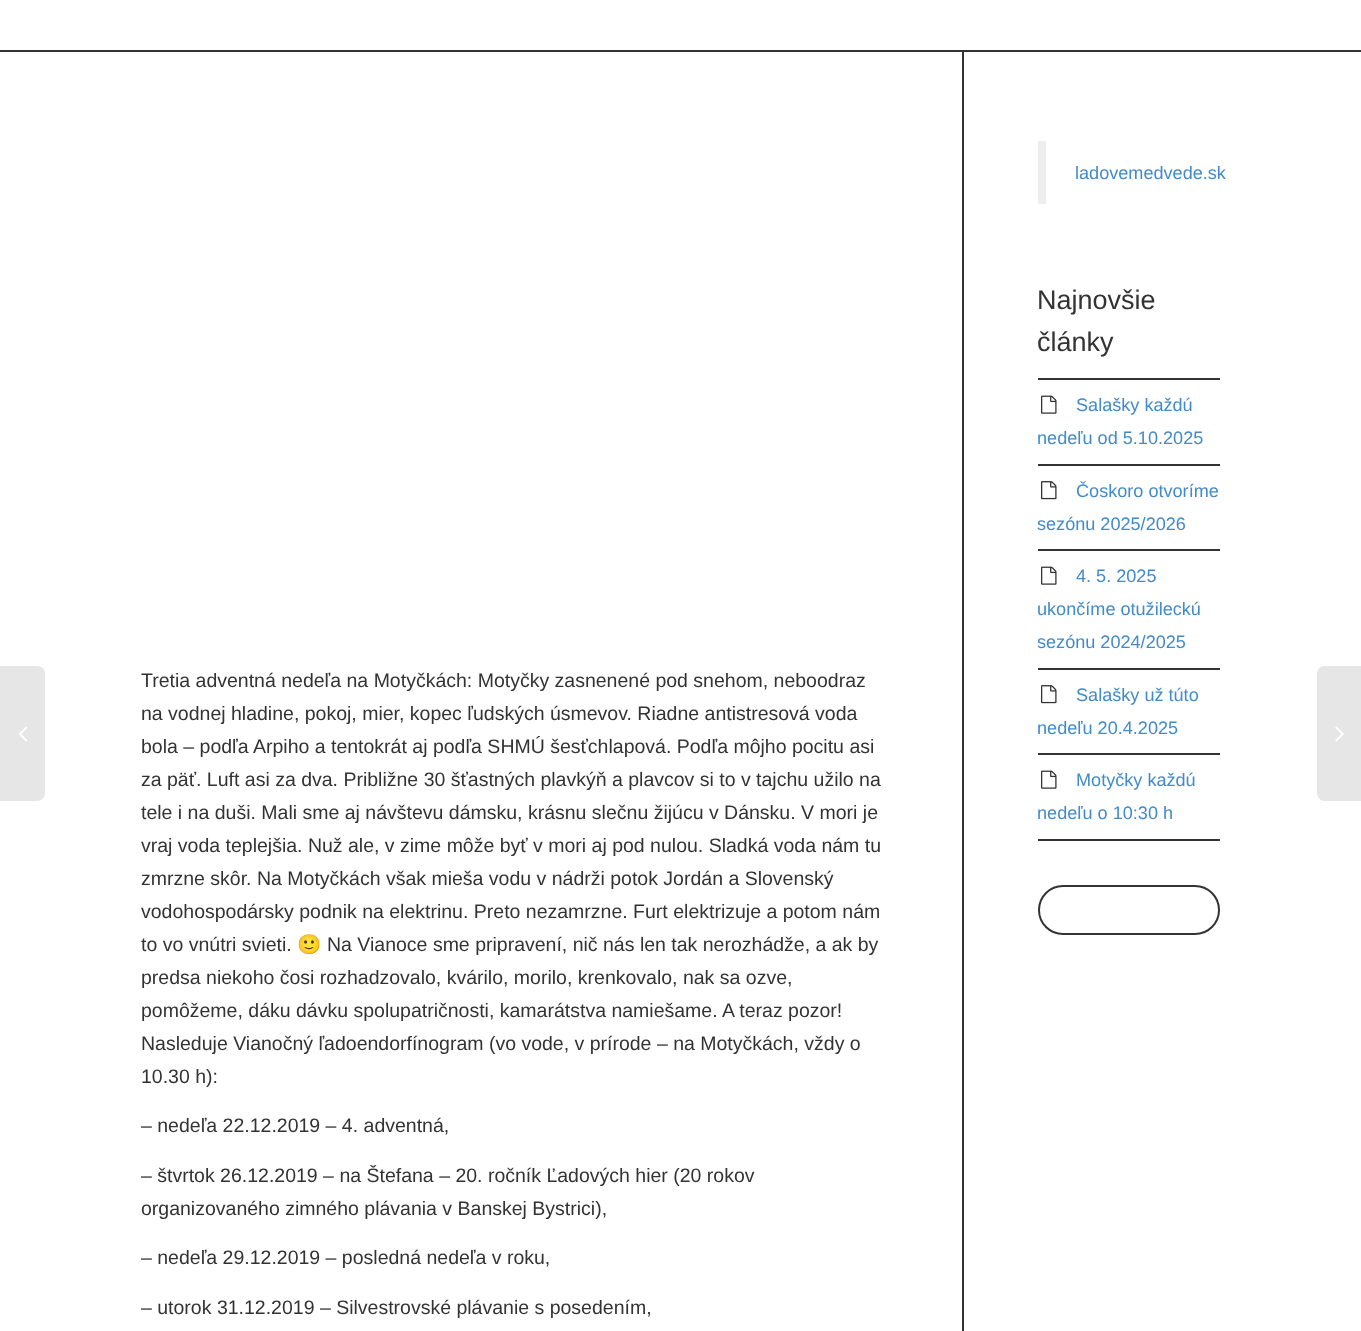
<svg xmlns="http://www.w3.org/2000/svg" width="1361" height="1331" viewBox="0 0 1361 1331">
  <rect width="100%" height="100%" fill="rgb(255,255,255)"/>
  <rect x="0" y="50" width="1361" height="2" fill="rgb(51,51,51)"/>
  <rect x="1038" y="141" width="8" height="63" fill="rgb(238,238,238)"/>
  <text x="1075" y="179" font-family="Liberation Sans" font-size="18.1" fill="rgb(66,139,202)">ladovemedvede.sk</text>
  <g font-family="Liberation Sans" font-size="27" fill="rgb(51,51,51)">
    <text>
      <tspan x="1037" y="309">Najnovšie</tspan>
      <tspan x="1037" y="351">články</tspan>
    </text>
  </g>
  <rect x="1038" y="378" width="182" height="2" fill="rgb(51,51,51)"/>
  <rect x="1038" y="464" width="182" height="2" fill="rgb(51,51,51)"/>
  <image x="1041" y="395" width="16" height="19" href="pic1.png"/>
  <g font-family="Liberation Sans" font-size="18.1" fill="rgb(66,139,202)">
    <text x="1076" y="411">Salašky každú</text>
    <text x="1037" y="444">nedeľu od 5.10.2025</text>
  </g>
  <rect x="1038" y="549" width="182" height="2" fill="rgb(51,51,51)"/>
  <image x="1041" y="481" width="16" height="19" href="pic2.png"/>
  <g font-family="Liberation Sans" font-size="18.1" fill="rgb(66,139,202)">
    <text x="1076" y="497">Čoskoro otvoríme</text>
    <text x="1037" y="530">sezónu 2025/2026</text>
  </g>
  <rect x="1038" y="668" width="182" height="2" fill="rgb(51,51,51)"/>
  <image x="1041" y="566" width="16" height="19" href="pic1.png"/>
  <g font-family="Liberation Sans" font-size="18.1" fill="rgb(66,139,202)">
    <text x="1076" y="582">4. 5. 2025</text>
    <text>
      <tspan x="1037" y="615">ukončíme otužileckú</tspan>
      <tspan x="1037" y="648">sezónu 2024/2025</tspan>
    </text>
  </g>
  <rect x="1038" y="753" width="182" height="2" fill="rgb(51,51,51)"/>
  <image x="1041" y="685" width="16" height="19" href="pic2.png"/>
  <g font-family="Liberation Sans" font-size="18.1" fill="rgb(66,139,202)">
    <text x="1076" y="701">Salašky už túto</text>
    <text x="1037" y="734">nedeľu 20.4.2025</text>
  </g>
  <rect x="1038" y="839" width="182" height="2" fill="rgb(51,51,51)"/>
  <image x="1041" y="770" width="16" height="19" href="pic1.png"/>
  <g font-family="Liberation Sans" font-size="18.1" fill="rgb(66,139,202)">
    <text x="1076" y="786">Motyčky každú</text>
    <text x="1037" y="819">nedeľu o 10:30 h</text>
  </g>
  <rect x="1039" y="886" width="180" height="48" rx="24" fill="none" stroke="rgb(51,51,51)" stroke-width="2"/>
  <rect x="962" y="51" width="2" height="1280" fill="rgb(51,51,51)"/>
  <path d="M-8 666H37C41.5 666 45 669.5 45 674V793C45 797.5 41.5 801 37 801H-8Z" fill="rgb(230,230,230)"/>
  <image x="19" y="726" width="9" height="16" href="pic3.png"/>
  <path d="M1325 666H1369V801H1325C1320.5 801 1317 797.5 1317 793V674C1317 669.5 1320.5 666 1325 666Z" fill="rgb(230,230,230)"/>
  <image x="1335" y="726" width="9" height="16" href="pic4.png"/>
  <g font-family="Liberation Sans" font-size="19.5" fill="rgb(51,51,51)">
    <text>
      <tspan x="141" y="687">Tretia adventná nedeľa na Motyčkách: Motyčky zasnenené pod snehom, neboodraz</tspan>
      <tspan x="141" y="720">na vodnej hladine, pokoj, mier, kopec ľudských úsmevov. Riadne antistresová voda</tspan>
      <tspan x="141" y="753">bola – podľa Arpiho a tentokrát aj podľa SHMÚ šesťchlapová. Podľa môjho pocitu asi</tspan>
      <tspan x="141" y="786">za päť. Luft asi za dva. Približne 30 šťastných plavkýň a plavcov si to v tajchu užilo na</tspan>
      <tspan x="141" y="819">tele i na duši. Mali sme aj návštevu dámsku, krásnu slečnu žijúcu v Dánsku. V mori je</tspan>
      <tspan x="141" y="852">vraj voda teplejšia. Nuž ale, v zime môže byť v mori aj pod nulou. Sladká voda nám tu</tspan>
      <tspan x="141" y="885">zmrzne skôr. Na Motyčkách však mieša vodu v nádrži potok Jordán a Slovenský</tspan>
      <tspan x="141" y="918">vodohospodársky podnik na elektrinu. Preto nezamrzne. Furt elektrizuje a potom nám</tspan>
      <tspan x="141" y="951">to vo vnútri svieti.</tspan>
    </text>
  </g>
  <text x="297" y="951" font-family="Noto Color Emoji" font-size="19.5" fill="rgb(51,51,51)">🙂</text>
  <g font-family="Liberation Sans" font-size="19.5" fill="rgb(51,51,51)">
    <text x="327" y="951">Na Vianoce sme pripravení, nič nás len tak nerozhádže, a ak by</text>
    <text>
      <tspan x="141" y="984">predsa niekoho čosi rozhadzovalo, kvárilo, morilo, krenkovalo, nak sa ozve,</tspan>
      <tspan x="141" y="1017">pomôžeme, dáku dávku spolupatričnosti, kamarátstva namiešame. A teraz pozor!</tspan>
      <tspan x="141" y="1050">Nasleduje Vianočný ľadoendorfínogram (vo vode, v prírode – na Motyčkách, vždy o</tspan>
      <tspan x="141" y="1083">10.30 h):</tspan>
    </text>
    <text x="141" y="1132">– nedeľa 22.12.2019 – 4. adventná,</text>
    <text>
      <tspan x="141" y="1182">– štvrtok 26.12.2019 – na Štefana – 20. ročník Ľadových hier (20 rokov</tspan>
      <tspan x="141" y="1215">organizovaného zimného plávania v Banskej Bystrici),</tspan>
    </text>
    <text x="141" y="1264">– nedeľa 29.12.2019 – posledná nedeľa v roku,</text>
    <text x="141" y="1314">– utorok 31.12.2019 – Silvestrovské plávanie s posedením,</text>
  </g>
</svg>
